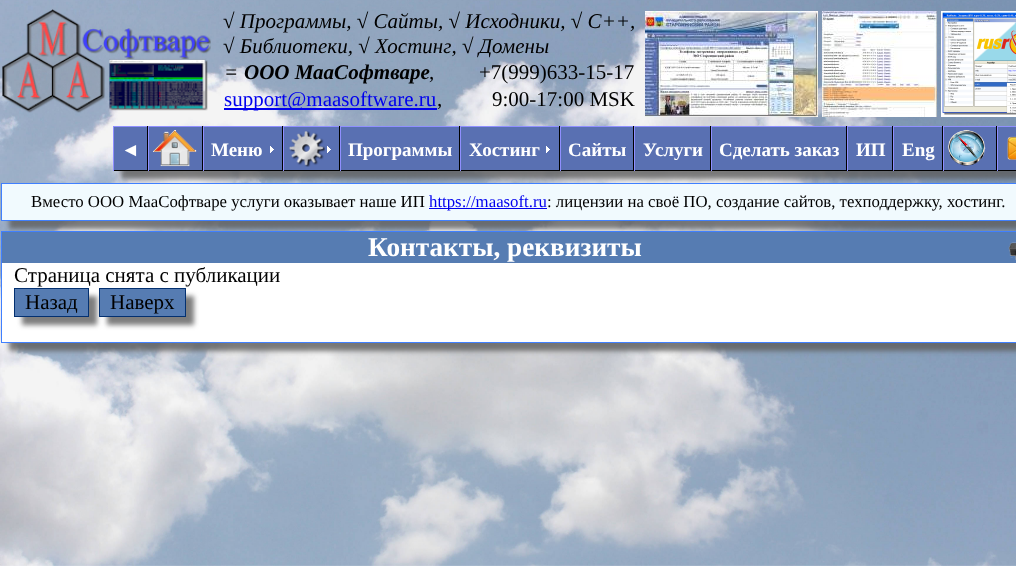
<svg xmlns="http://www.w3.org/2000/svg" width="1016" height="566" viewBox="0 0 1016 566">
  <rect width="100%" height="100%" fill="rgb(255,255,255)"/>
  <image x="0" y="0" width="1016" height="566" href="pic1.png"/>
  <image x="2" y="9" width="209" height="104" href="pic2.png"/>
  <g font-family="Liberation Serif" font-size="21" font-style="italic" fill="rgb(0,0,0)">
    <text>
      <tspan x="223" y="28">√ Программы, √ Сайты, √ Исходники, √ C++,</tspan>
      <tspan x="223" y="53">√ Библиотеки, √ Хостинг, √ Домены</tspan>
    </text>
    <text x="224" y="79">=</text>
  </g>
  <text x="244" y="79" font-family="Liberation Serif" font-size="21" font-weight="bold" font-style="italic" fill="rgb(0,0,0)">ООО МааСофтваре</text>
  <g font-family="Liberation Serif" font-size="21" fill="rgb(0,0,0)">
    <text x="429" y="79">,</text>
    <text x="479" y="79">+7(999)633-15-17</text>
  </g>
  <rect x="224" y="108" width="213" height="2" fill="rgb(0,0,238)"/>
  <text x="224" y="106" font-family="Liberation Serif" font-size="21" fill="rgb(0,0,238)">support@maasoftware.ru</text>
  <g font-family="Liberation Serif" font-size="21" fill="rgb(0,0,0)">
    <text x="437" y="106">,</text>
    <text x="492" y="106">9:00-17:00 MSK</text>
  </g>
  <image x="645" y="11" width="173" height="106" href="pic3.png"/>
  <image x="822" y="11" width="115" height="106" href="pic4.png"/>
  <image x="941" y="11" width="75" height="106" href="pic5.png"/>
  <rect x="121" y="134" width="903" height="45" fill="rgba(92,92,92,0.8)" filter="blur(2.5px)"/>
  <rect x="114" y="127" width="902" height="43" fill="rgb(89,112,178)"/>
  <rect x="113" y="126" width="903" height="1" fill="rgb(143,143,255)"/>
  <rect x="202" y="126" width="1" height="45" fill="rgb(0,0,0)"/>
  <rect x="148" y="170" width="55" height="1" fill="rgb(0,0,0)"/>
  <rect x="148" y="126" width="1" height="45" fill="rgb(143,143,255)"/>
  <image x="153" y="130" width="44" height="37" href="pic6.png"/>
  <rect x="339" y="126" width="1" height="45" fill="rgb(0,0,0)"/>
  <rect x="283" y="170" width="57" height="1" fill="rgb(0,0,0)"/>
  <rect x="283" y="126" width="1" height="45" fill="rgb(143,143,255)"/>
  <image x="327" y="146" width="4" height="7" href="pic7.png"/>
  <image x="289" y="131" width="36" height="36" href="pic8.png"/>
  <rect x="996" y="126" width="1" height="45" fill="rgb(0,0,0)"/>
  <rect x="943" y="170" width="73" height="1" fill="rgb(0,0,0)"/>
  <rect x="943" y="126" width="1" height="45" fill="rgb(143,143,255)"/>
  <image x="947" y="130" width="39" height="36" href="pic9.png"/>
  <rect x="147" y="126" width="1" height="45" fill="rgb(0,0,0)"/>
  <rect x="113" y="170" width="35" height="1" fill="rgb(0,0,0)"/>
  <rect x="113" y="126" width="1" height="45" fill="rgb(143,143,255)"/>
  <text x="121" y="156" font-family="Liberation Serif" font-size="19" font-weight="bold" fill="rgb(255,255,255)">◄</text>
  <rect x="282" y="126" width="1" height="45" fill="rgb(0,0,0)"/>
  <rect x="203" y="170" width="80" height="1" fill="rgb(0,0,0)"/>
  <rect x="203" y="126" width="1" height="45" fill="rgb(143,143,255)"/>
  <image x="270" y="146" width="4" height="7" href="pic7.png"/>
  <text x="211" y="156" font-family="Liberation Serif" font-size="19" font-weight="bold" fill="rgb(255,255,255)">Меню</text>
  <rect x="459" y="126" width="1" height="45" fill="rgb(0,0,0)"/>
  <rect x="340" y="170" width="120" height="1" fill="rgb(0,0,0)"/>
  <rect x="340" y="126" width="1" height="45" fill="rgb(143,143,255)"/>
  <text x="348" y="156" font-family="Liberation Serif" font-size="19" font-weight="bold" fill="rgb(255,255,255)">Программы</text>
  <rect x="559" y="126" width="1" height="45" fill="rgb(0,0,0)"/>
  <rect x="460" y="170" width="100" height="1" fill="rgb(0,0,0)"/>
  <rect x="460" y="126" width="1" height="45" fill="rgb(143,143,255)"/>
  <image x="546" y="146" width="4" height="7" href="pic7.png"/>
  <text x="469" y="156" font-family="Liberation Serif" font-size="19" font-weight="bold" fill="rgb(255,255,255)">Хостинг</text>
  <rect x="633" y="126" width="1" height="45" fill="rgb(0,0,0)"/>
  <rect x="560" y="170" width="74" height="1" fill="rgb(0,0,0)"/>
  <rect x="560" y="126" width="1" height="45" fill="rgb(143,143,255)"/>
  <text x="568" y="156" font-family="Liberation Serif" font-size="19" font-weight="bold" fill="rgb(255,255,255)">Сайты</text>
  <rect x="710" y="126" width="1" height="45" fill="rgb(0,0,0)"/>
  <rect x="634" y="170" width="77" height="1" fill="rgb(0,0,0)"/>
  <rect x="634" y="126" width="1" height="45" fill="rgb(143,143,255)"/>
  <text x="643" y="156" font-family="Liberation Serif" font-size="19" font-weight="bold" fill="rgb(255,255,255)">Услуги</text>
  <rect x="846" y="126" width="1" height="45" fill="rgb(0,0,0)"/>
  <rect x="711" y="170" width="136" height="1" fill="rgb(0,0,0)"/>
  <rect x="711" y="126" width="1" height="45" fill="rgb(143,143,255)"/>
  <text x="719" y="156" font-family="Liberation Serif" font-size="19" font-weight="bold" fill="rgb(255,255,255)">Сделать заказ</text>
  <rect x="892" y="126" width="1" height="45" fill="rgb(0,0,0)"/>
  <rect x="847" y="170" width="46" height="1" fill="rgb(0,0,0)"/>
  <rect x="847" y="126" width="1" height="45" fill="rgb(143,143,255)"/>
  <text x="856" y="156" font-family="Liberation Serif" font-size="19" font-weight="bold" fill="rgb(255,255,255)">ИП</text>
  <rect x="942" y="126" width="1" height="45" fill="rgb(0,0,0)"/>
  <rect x="893" y="170" width="50" height="1" fill="rgb(0,0,0)"/>
  <rect x="893" y="126" width="1" height="45" fill="rgb(143,143,255)"/>
  <text x="902" y="156" font-family="Liberation Serif" font-size="19" font-weight="bold" fill="rgb(255,255,255)">Eng</text>
  <rect x="997" y="126" width="1" height="45" fill="rgb(143,143,255)"/>
  <image x="1007" y="136" width="9" height="24" href="pic10.png"/>
  <rect x="9" y="191" width="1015" height="38" fill="rgba(92,92,92,0.8)" filter="blur(2.5px)"/>
  <rect x="1.5" y="183.5" width="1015" height="37" fill="none" stroke="rgb(64,128,255)"/>
  <rect x="2" y="184" width="1014" height="36" fill="rgb(241,250,254)"/>
  <text x="31" y="207" font-family="Liberation Serif" font-size="16.8" fill="rgb(0,0,0)">Вместо ООО МааСофтваре услуги оказывает наше ИП</text>
  <rect x="429" y="208" width="118" height="1" fill="rgb(0,0,238)"/>
  <text x="429" y="207" font-family="Liberation Serif" font-size="16.8" fill="rgb(0,0,238)">https://maasoft.ru</text>
  <text x="547" y="207" font-family="Liberation Serif" font-size="16.8" fill="rgb(0,0,0)">: лицензии на своё ПО, создание сайтов, техподдержку, хостинг.</text>
  <rect x="9" y="239" width="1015" height="112" fill="rgba(92,92,92,0.8)" filter="blur(2.5px)"/>
  <rect x="2" y="263" width="1014" height="79" fill="rgb(255,255,255)"/>
  <rect x="1.5" y="231.5" width="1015" height="111" fill="none" stroke="rgb(64,128,255)"/>
  <rect x="2" y="232" width="1014" height="31" fill="rgb(86,124,178)"/>
  <text x="368" y="256" font-family="Liberation Serif" font-size="27.25" font-weight="bold" fill="rgb(255,255,255)">Контакты, реквизиты</text>
  <image x="1008" y="242" width="8" height="18" href="pic11.png"/>
  <text x="14" y="282" font-family="Liberation Serif" font-size="21" fill="rgb(0,0,0)">Страница снята с публикации</text>
  <rect x="22" y="296" width="75" height="29" fill="rgba(92,92,92,0.8)" filter="blur(2.5px)"/>
  <rect x="14.5" y="288.5" width="74" height="28" fill="rgb(86,124,178)" stroke="rgb(3,48,112)"/>
  <text x="25" y="309" font-family="Liberation Serif" font-size="21" fill="rgb(0,0,0)">Назад</text>
  <rect x="107" y="296" width="87" height="29" fill="rgba(92,92,92,0.8)" filter="blur(2.5px)"/>
  <rect x="99.5" y="288.5" width="86" height="28" fill="rgb(86,124,178)" stroke="rgb(3,48,112)"/>
  <text x="110" y="309" font-family="Liberation Serif" font-size="21" fill="rgb(0,0,0)">Наверх</text>
</svg>
